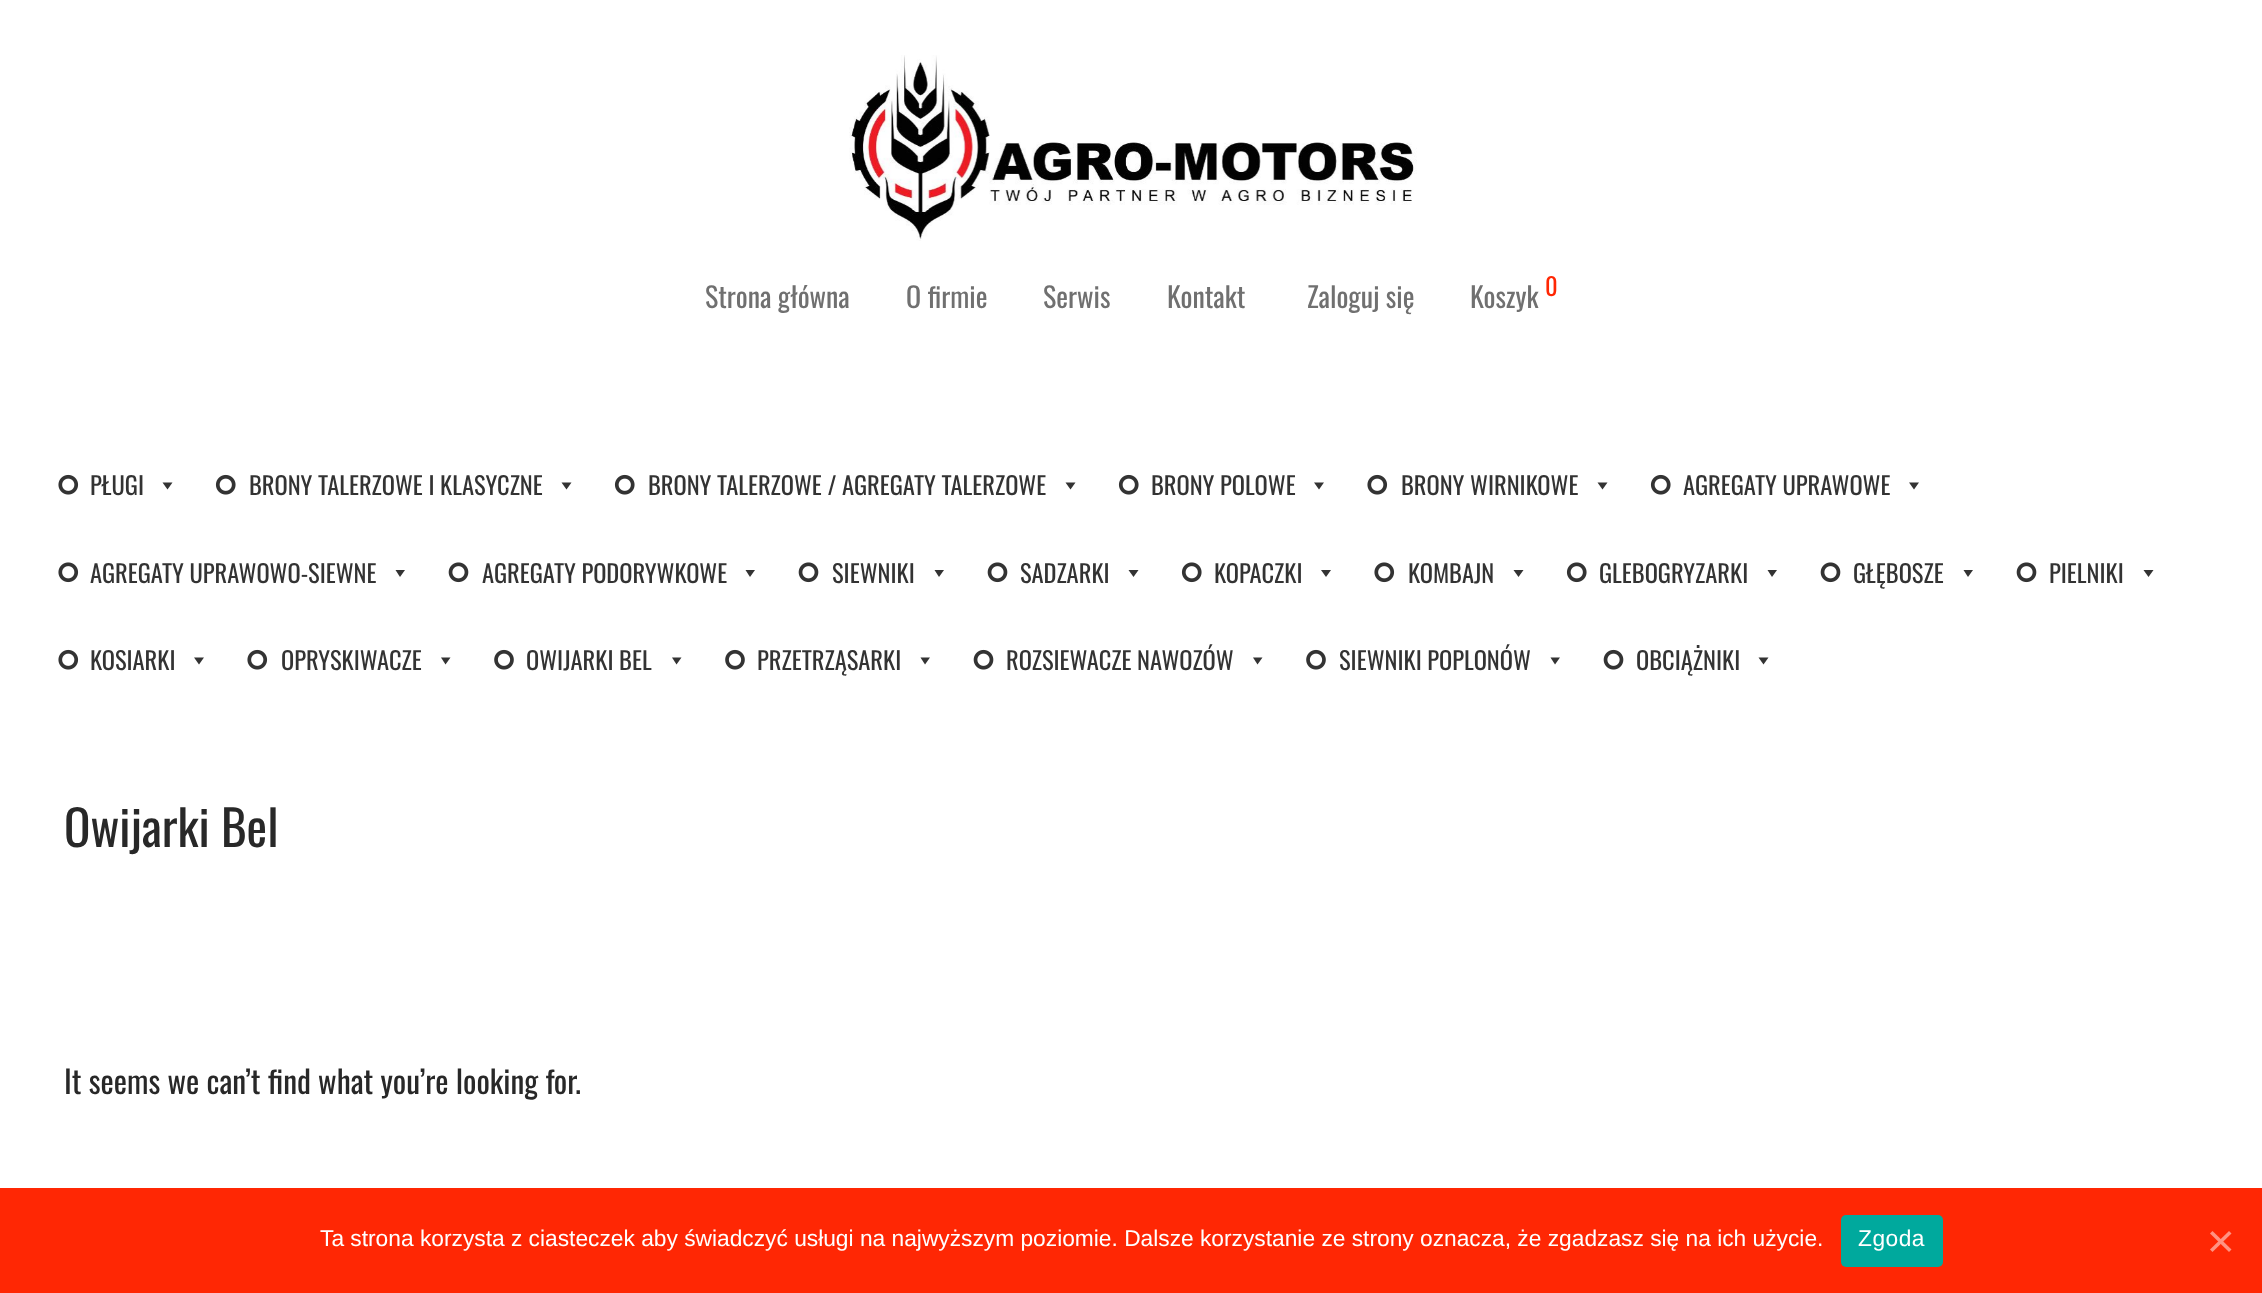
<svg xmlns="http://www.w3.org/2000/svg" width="2262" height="1293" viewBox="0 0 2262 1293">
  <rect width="100%" height="100%" fill="rgb(255,255,255)"/>
  <image x="849" y="55" width="568" height="186" href="pic1.png"/>
  <g font-family="Oswald" font-size="28" fill="rgb(112,112,112)">
    <text x="705" y="308">Strona główna</text>
    <text x="906" y="308">O firmie</text>
    <text x="1043" y="308">Serwis</text>
    <text x="1167" y="308">Kontakt</text>
    <text x="1307" y="308">Zaloguj się</text>
    <text x="1470" y="308">Koszyk</text>
  </g>
  <text x="1545" y="296" font-family="Oswald" font-size="24.5" fill="rgb(255,39,4)">0</text>
  <image x="58" y="474" width="21" height="21" href="pic2.png"/>
  <text x="90" y="495" font-family="Oswald" font-size="24.5" fill="rgb(51,51,51)">PŁUGI</text>
  <path d="M172.5 482.5L167.5 489.5L162.5 482.5Z" fill="rgb(51,51,51)"/>
  <image x="215" y="474" width="21" height="21" href="pic3.png"/>
  <text x="249" y="495" font-family="Oswald" font-size="24.5" fill="rgb(51,51,51)">BRONY TALERZOWE I KLASYCZNE</text>
  <path d="M571.5 482.5L566.5 489.5L561.5 482.5Z" fill="rgb(51,51,51)"/>
  <image x="614" y="474" width="21" height="21" href="pic3.png"/>
  <text x="648" y="495" font-family="Oswald" font-size="24.5" fill="rgb(51,51,51)">BRONY TALERZOWE / AGREGATY TALERZOWE</text>
  <path d="M1075.5 482.5L1070.5 489.5L1065.5 482.5Z" fill="rgb(51,51,51)"/>
  <image x="1118" y="474" width="21" height="21" href="pic3.png"/>
  <text x="1151" y="495" font-family="Oswald" font-size="24.5" fill="rgb(51,51,51)">BRONY POLOWE</text>
  <path d="M1324 482.5L1319 489.5L1314 482.5Z" fill="rgb(51,51,51)"/>
  <image x="1367" y="474" width="21" height="21" href="pic2.png"/>
  <text x="1401" y="495" font-family="Oswald" font-size="24.5" fill="rgb(51,51,51)">BRONY WIRNIKOWE</text>
  <path d="M1607.5 482.5L1602.5 489.5L1597.5 482.5Z" fill="rgb(51,51,51)"/>
  <image x="1650" y="474" width="21" height="21" href="pic3.png"/>
  <text x="1683" y="495" font-family="Oswald" font-size="24.5" fill="rgb(51,51,51)">AGREGATY UPRAWOWE</text>
  <path d="M1919 482.5L1914 489.5L1909 482.5Z" fill="rgb(51,51,51)"/>
  <image x="58" y="562" width="21" height="21" href="pic4.png"/>
  <text x="90" y="583" font-family="Oswald" font-size="24.5" fill="rgb(51,51,51)">AGREGATY UPRAWOWO-SIEWNE</text>
  <path d="M405 570L400 577L395.5 570Z" fill="rgb(51,51,51)"/>
  <image x="448" y="562" width="21" height="21" href="pic5.png"/>
  <text x="482" y="583" font-family="Oswald" font-size="24.5" fill="rgb(51,51,51)">AGREGATY PODORYWKOWE</text>
  <path d="M755 570L750 577L745.5 570Z" fill="rgb(51,51,51)"/>
  <image x="798" y="562" width="21" height="21" href="pic5.png"/>
  <text x="832" y="583" font-family="Oswald" font-size="24.5" fill="rgb(51,51,51)">SIEWNIKI</text>
  <path d="M944 570L939 577L934.5 570Z" fill="rgb(51,51,51)"/>
  <image x="987" y="562" width="21" height="21" href="pic5.png"/>
  <text x="1020" y="583" font-family="Oswald" font-size="24.5" fill="rgb(51,51,51)">SADZARKI</text>
  <path d="M1138.5 570L1133.5 577L1128.5 570Z" fill="rgb(51,51,51)"/>
  <image x="1181" y="562" width="21" height="21" href="pic6.png"/>
  <text x="1214" y="583" font-family="Oswald" font-size="24.5" fill="rgb(51,51,51)">KOPACZKI</text>
  <path d="M1331 570L1326 577L1321 570Z" fill="rgb(51,51,51)"/>
  <image x="1374" y="562" width="21" height="21" href="pic4.png"/>
  <text x="1408" y="583" font-family="Oswald" font-size="24.5" fill="rgb(51,51,51)">KOMBAJN</text>
  <path d="M1523.5 570L1518.5 577L1513.5 570Z" fill="rgb(51,51,51)"/>
  <image x="1566" y="562" width="21" height="21" href="pic6.png"/>
  <text x="1599" y="583" font-family="Oswald" font-size="24.5" fill="rgb(51,51,51)">GLEBOGRYZARKI</text>
  <path d="M1777 570L1772 577L1767.5 570Z" fill="rgb(51,51,51)"/>
  <image x="1820" y="562" width="21" height="21" href="pic5.png"/>
  <text x="1853" y="583" font-family="Oswald" font-size="24.5" fill="rgb(51,51,51)">GŁĘBOSZE</text>
  <path d="M1973 570L1968 577L1963.5 570Z" fill="rgb(51,51,51)"/>
  <image x="2016" y="562" width="21" height="21" href="pic5.png"/>
  <text x="2049" y="583" font-family="Oswald" font-size="24.5" fill="rgb(51,51,51)">PIELNIKI</text>
  <path d="M2153.5 570L2148.5 577L2143.5 570Z" fill="rgb(51,51,51)"/>
  <image x="58" y="649" width="21" height="21" href="pic2.png"/>
  <text x="90" y="670" font-family="Oswald" font-size="24.5" fill="rgb(51,51,51)">KOSIARKI</text>
  <path d="M204 657.5L199 664.5L194 657.5Z" fill="rgb(51,51,51)"/>
  <image x="247" y="649" width="21" height="21" href="pic2.png"/>
  <text x="281" y="670" font-family="Oswald" font-size="24.5" fill="rgb(51,51,51)">OPRYSKIWACZE</text>
  <path d="M450.5 657.5L445.5 664.5L441 657.5Z" fill="rgb(51,51,51)"/>
  <image x="494" y="649" width="20" height="21" href="pic7.png"/>
  <text x="526" y="670" font-family="Oswald" font-size="24.5" fill="rgb(51,51,51)">OWIJARKI BEL</text>
  <path d="M681.5 657.5L676.5 664.5L672 657.5Z" fill="rgb(51,51,51)"/>
  <image x="725" y="649" width="20" height="21" href="pic7.png"/>
  <text x="757" y="670" font-family="Oswald" font-size="24.5" fill="rgb(51,51,51)">PRZETRZĄSARKI</text>
  <path d="M930 657.5L925 664.5L920.5 657.5Z" fill="rgb(51,51,51)"/>
  <image x="973" y="649" width="21" height="21" href="pic8.png"/>
  <text x="1006" y="670" font-family="Oswald" font-size="24.5" fill="rgb(51,51,51)">ROZSIEWACZE NAWOZÓW</text>
  <path d="M1262.5 657.5L1257.5 664.5L1253 657.5Z" fill="rgb(51,51,51)"/>
  <image x="1306" y="649" width="20" height="21" href="pic7.png"/>
  <text x="1339" y="670" font-family="Oswald" font-size="24.5" fill="rgb(51,51,51)">SIEWNIKI POPLONÓW</text>
  <path d="M1560 657.5L1555 664.5L1550.5 657.5Z" fill="rgb(51,51,51)"/>
  <image x="1603" y="649" width="21" height="21" href="pic8.png"/>
  <text x="1636" y="670" font-family="Oswald" font-size="24.5" fill="rgb(51,51,51)">OBCIĄŻNIKI</text>
  <path d="M1768.5 657.5L1763.5 664.5L1758.5 657.5Z" fill="rgb(51,51,51)"/>
  <text x="64" y="847" font-family="Oswald" font-size="49" fill="rgb(40,40,40)">Owijarki Bel</text>
  <text x="64" y="1094" font-family="Oswald" font-size="31.5" fill="rgb(40,40,40)">It seems we can’t find what you’re looking for.</text>
  <rect x="0" y="1188" width="2262" height="105" fill="rgb(255,39,4)"/>
  <text x="320" y="1246" font-family="Liberation Sans" font-size="22.75" fill="rgb(255,255,255)">Ta strona korzysta z ciasteczek aby świadczyć usługi na najwyższym poziomie. Dalsze korzystanie ze strony oznacza, że zgadzasz się na ich użycie.</text>
  <rect x="1841" y="1215" width="102" height="52" rx="5" fill="rgb(0,169,157)"/>
  <text x="1858" y="1246" font-family="Liberation Sans" font-size="22.75" letter-spacing="0.5" fill="rgb(255,255,255)">Zgoda</text>
  <path d="M2229 1231L2231.5 1233.5L2212.5 1252L2210 1249.5Z" fill="rgb(255,147,130)"/>
  <path d="M2210 1233.5L2212.5 1231L2231.5 1249.5L2229 1252Z" fill="rgb(255,147,130)"/>
</svg>
